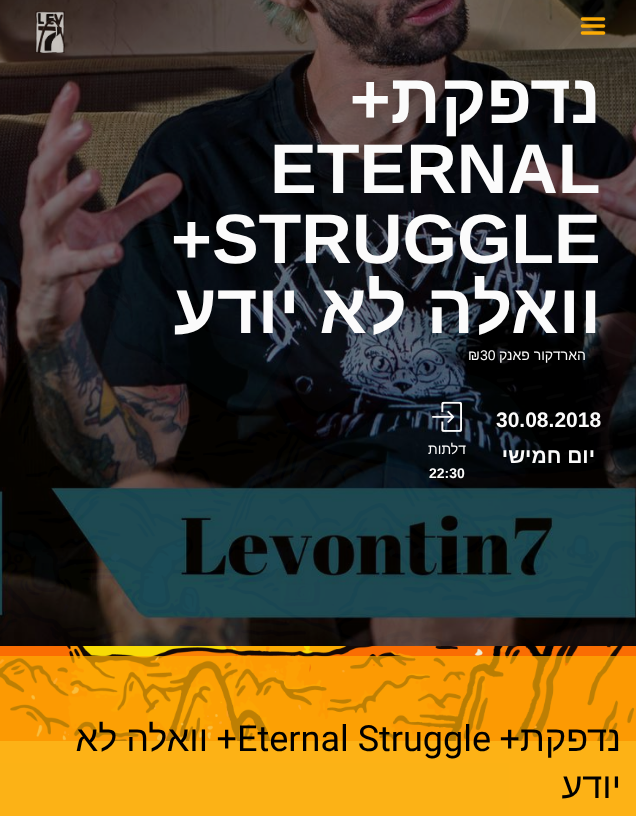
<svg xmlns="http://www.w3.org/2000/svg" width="636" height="816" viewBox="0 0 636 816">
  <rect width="100%" height="100%" fill="rgb(253,194,71)"/>
  <image x="0" y="0" width="636" height="741" href="pic1.png"/>
  <image x="0" y="0" width="636" height="646" href="pic4.png"/>
  <image x="580" y="17" width="26" height="18" href="pic2.png"/>
  <image x="35" y="11" width="30" height="42" href="pic3.png"/>
  <text x="601" y="123" font-family="Liberation Sans" font-size="70" font-weight="bold" direction="rtl" fill="rgb(251,251,251)">נדפקת+</text>
  <g font-family="Liberation Sans" font-size="70" font-weight="bold" fill="rgb(251,251,251)">
    <text x="270" y="193">ETERNAL</text>
    <text x="171" y="263">+STRUGGLE</text>
  </g>
  <text x="601" y="333" font-family="Liberation Sans" font-size="70" font-weight="bold" direction="rtl" fill="rgb(251,251,251)">וואלה לא יודע</text>
  <text x="586" y="360" font-family="Liberation Sans" font-size="14" direction="rtl" fill="rgb(251,251,251)">הארדקור פאנק</text>
  <text x="468" y="360" font-family="Liberation Sans" font-size="14" fill="rgb(251,251,251)">₪30</text>
  <text x="496" y="427" font-family="Liberation Sans" font-size="21" font-weight="bold" fill="rgb(251,251,251)">30.08.2018</text>
  <text x="595" y="463" font-family="Liberation Sans" font-size="21" font-weight="bold" direction="rtl" fill="rgb(251,251,251)">יום חמישי</text>
  <image x="432" y="401" width="30" height="31" href="pic5.png"/>
  <text x="466" y="454" font-family="Liberation Sans" font-size="14" direction="rtl" fill="rgb(251,251,251)">דלתות</text>
  <text x="429" y="478" font-family="Liberation Sans" font-size="14" font-weight="bold" fill="rgb(251,251,251)">22:30</text>
  <rect x="0" y="656" width="636" height="160" fill="rgba(252,172,4,0.73)"/>
  <text x="621" y="751" font-family="Liberation Sans" font-size="36" direction="rtl" fill="rgb(0,0,0)">נדפקת</text>
  <text x="520" y="751" font-family="Roboto" font-size="36" direction="rtl" fill="rgb(0,0,0)">+</text>
  <text x="237" y="751" font-family="Roboto" font-size="36" fill="rgb(0,0,0)">Eternal Struggle</text>
  <text x="237" y="751" font-family="Roboto" font-size="36" direction="rtl" fill="rgb(0,0,0)">+</text>
  <g font-family="Liberation Sans" font-size="36" direction="rtl" fill="rgb(0,0,0)">
    <text x="208" y="751" word-spacing="-1">וואלה לא</text>
    <text x="621" y="798">יודע</text>
  </g>
</svg>
